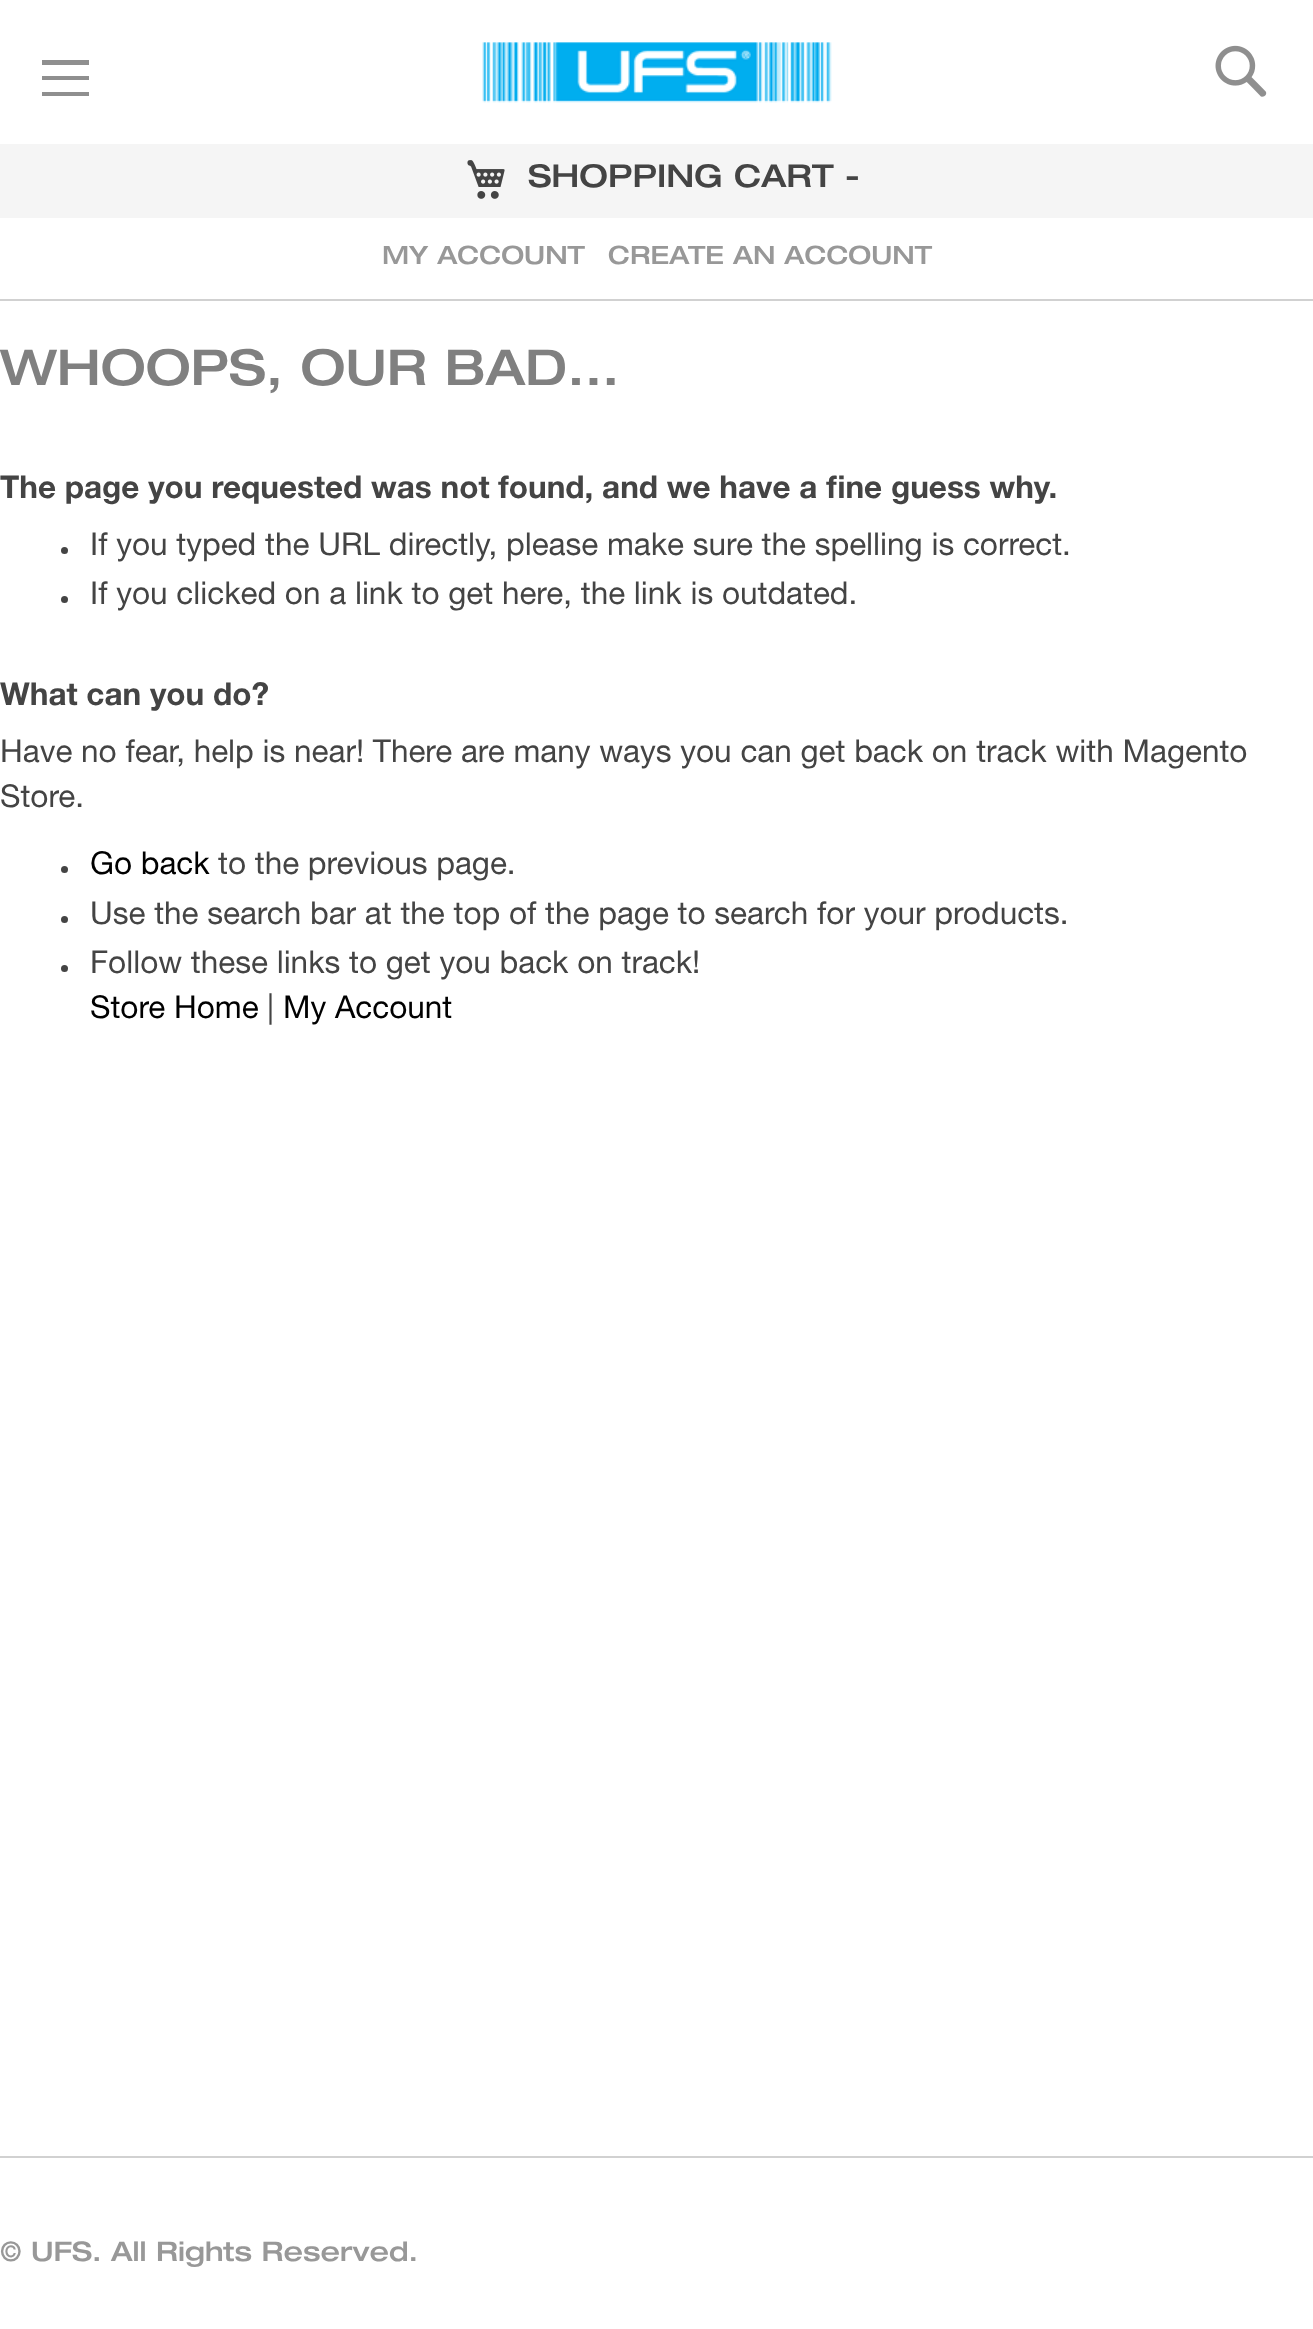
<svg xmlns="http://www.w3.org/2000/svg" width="1313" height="2329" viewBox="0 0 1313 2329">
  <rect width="100%" height="100%" fill="rgb(255,255,255)"/>
  <rect x="0" y="299" width="1313" height="2" fill="rgb(209,209,209)"/>
  <path d="M42 60V65H89V60ZM42 80H89V76H42ZM42 96H89V92H42Z" fill="rgb(143,143,143)"/>
  <image x="482" y="42" width="350" height="61" href="pic1.png"/>
  <image x="1215" y="45" width="52" height="52" href="pic2.png"/>
  <rect x="0" y="144" width="1313" height="74" fill="rgb(245,245,245)"/>
  <image x="467" y="160" width="38" height="39" href="pic3.png"/>
  <text x="528" y="187" font-family="Helvetica Neue" font-size="31.5" font-weight="500" fill="rgb(68,68,68)">SHOPPING CART -</text>
  <g font-family="Helvetica Neue" font-size="25.25" font-weight="500" fill="rgb(152,152,152)">
    <text x="382" y="264">MY ACCOUNT</text>
    <text x="608" y="264">CREATE AN ACCOUNT</text>
  </g>
  <text x="0" y="385" font-family="Helvetica Neue" font-size="49.5" font-weight="500" fill="rgb(128,128,128)">WHOOPS, OUR BAD...</text>
  <text x="0" y="498" font-family="Helvetica Neue" font-size="31.5" font-weight="bold" fill="rgb(68,68,68)">The page you requested was not found, and we have a fine guess why.</text>
  <circle cx="64.5" cy="550.5" r="3.5" fill="rgb(68,68,68)"/>
  <text x="90" y="555" font-family="Helvetica Neue" font-size="31.5" fill="rgb(68,68,68)">If you typed the URL directly, please make sure the spelling is correct.</text>
  <circle cx="64.5" cy="599.5" r="3.5" fill="rgb(68,68,68)"/>
  <text x="90" y="604" font-family="Helvetica Neue" font-size="31.5" fill="rgb(68,68,68)">If you clicked on a link to get here, the link is outdated.</text>
  <text x="0" y="705" font-family="Helvetica Neue" font-size="31.5" font-weight="bold" fill="rgb(68,68,68)">What can you do?</text>
  <g font-family="Helvetica Neue" font-size="31.5" fill="rgb(68,68,68)">
    <text>
      <tspan x="0" y="762">Have no fear, help is near! There are many ways you can get back on track with Magento</tspan>
      <tspan x="0" y="807">Store.</tspan>
    </text>
  </g>
  <circle cx="64.5" cy="869.5" r="3.5" fill="rgb(68,68,68)"/>
  <text x="90" y="874" font-family="Helvetica Neue" font-size="31.5" fill="rgb(0,0,0)">Go back</text>
  <text x="218" y="874" font-family="Helvetica Neue" font-size="31.5" fill="rgb(68,68,68)">to the previous page.</text>
  <circle cx="64.5" cy="919.5" r="3.5" fill="rgb(68,68,68)"/>
  <text x="90" y="924" font-family="Helvetica Neue" font-size="31.5" fill="rgb(68,68,68)">Use the search bar at the top of the page to search for your products.</text>
  <circle cx="64.5" cy="968.5" r="3.5" fill="rgb(68,68,68)"/>
  <text x="90" y="973" font-family="Helvetica Neue" font-size="31.5" fill="rgb(68,68,68)">Follow these links to get you back on track!</text>
  <text x="90" y="1018" font-family="Helvetica Neue" font-size="31.5" fill="rgb(0,0,0)">Store Home</text>
  <text x="267" y="1018" font-family="Helvetica Neue" font-size="31.5" fill="rgb(68,68,68)">|</text>
  <text x="283" y="1018" font-family="Helvetica Neue" font-size="31.5" fill="rgb(0,0,0)">My Account</text>
  <rect x="0" y="2156" width="1313" height="2" fill="rgb(209,209,209)"/>
  <text x="0" y="2261" font-family="Helvetica Neue" font-size="27" font-weight="500" fill="rgb(152,152,152)">© UFS. All Rights Reserved.</text>
</svg>
